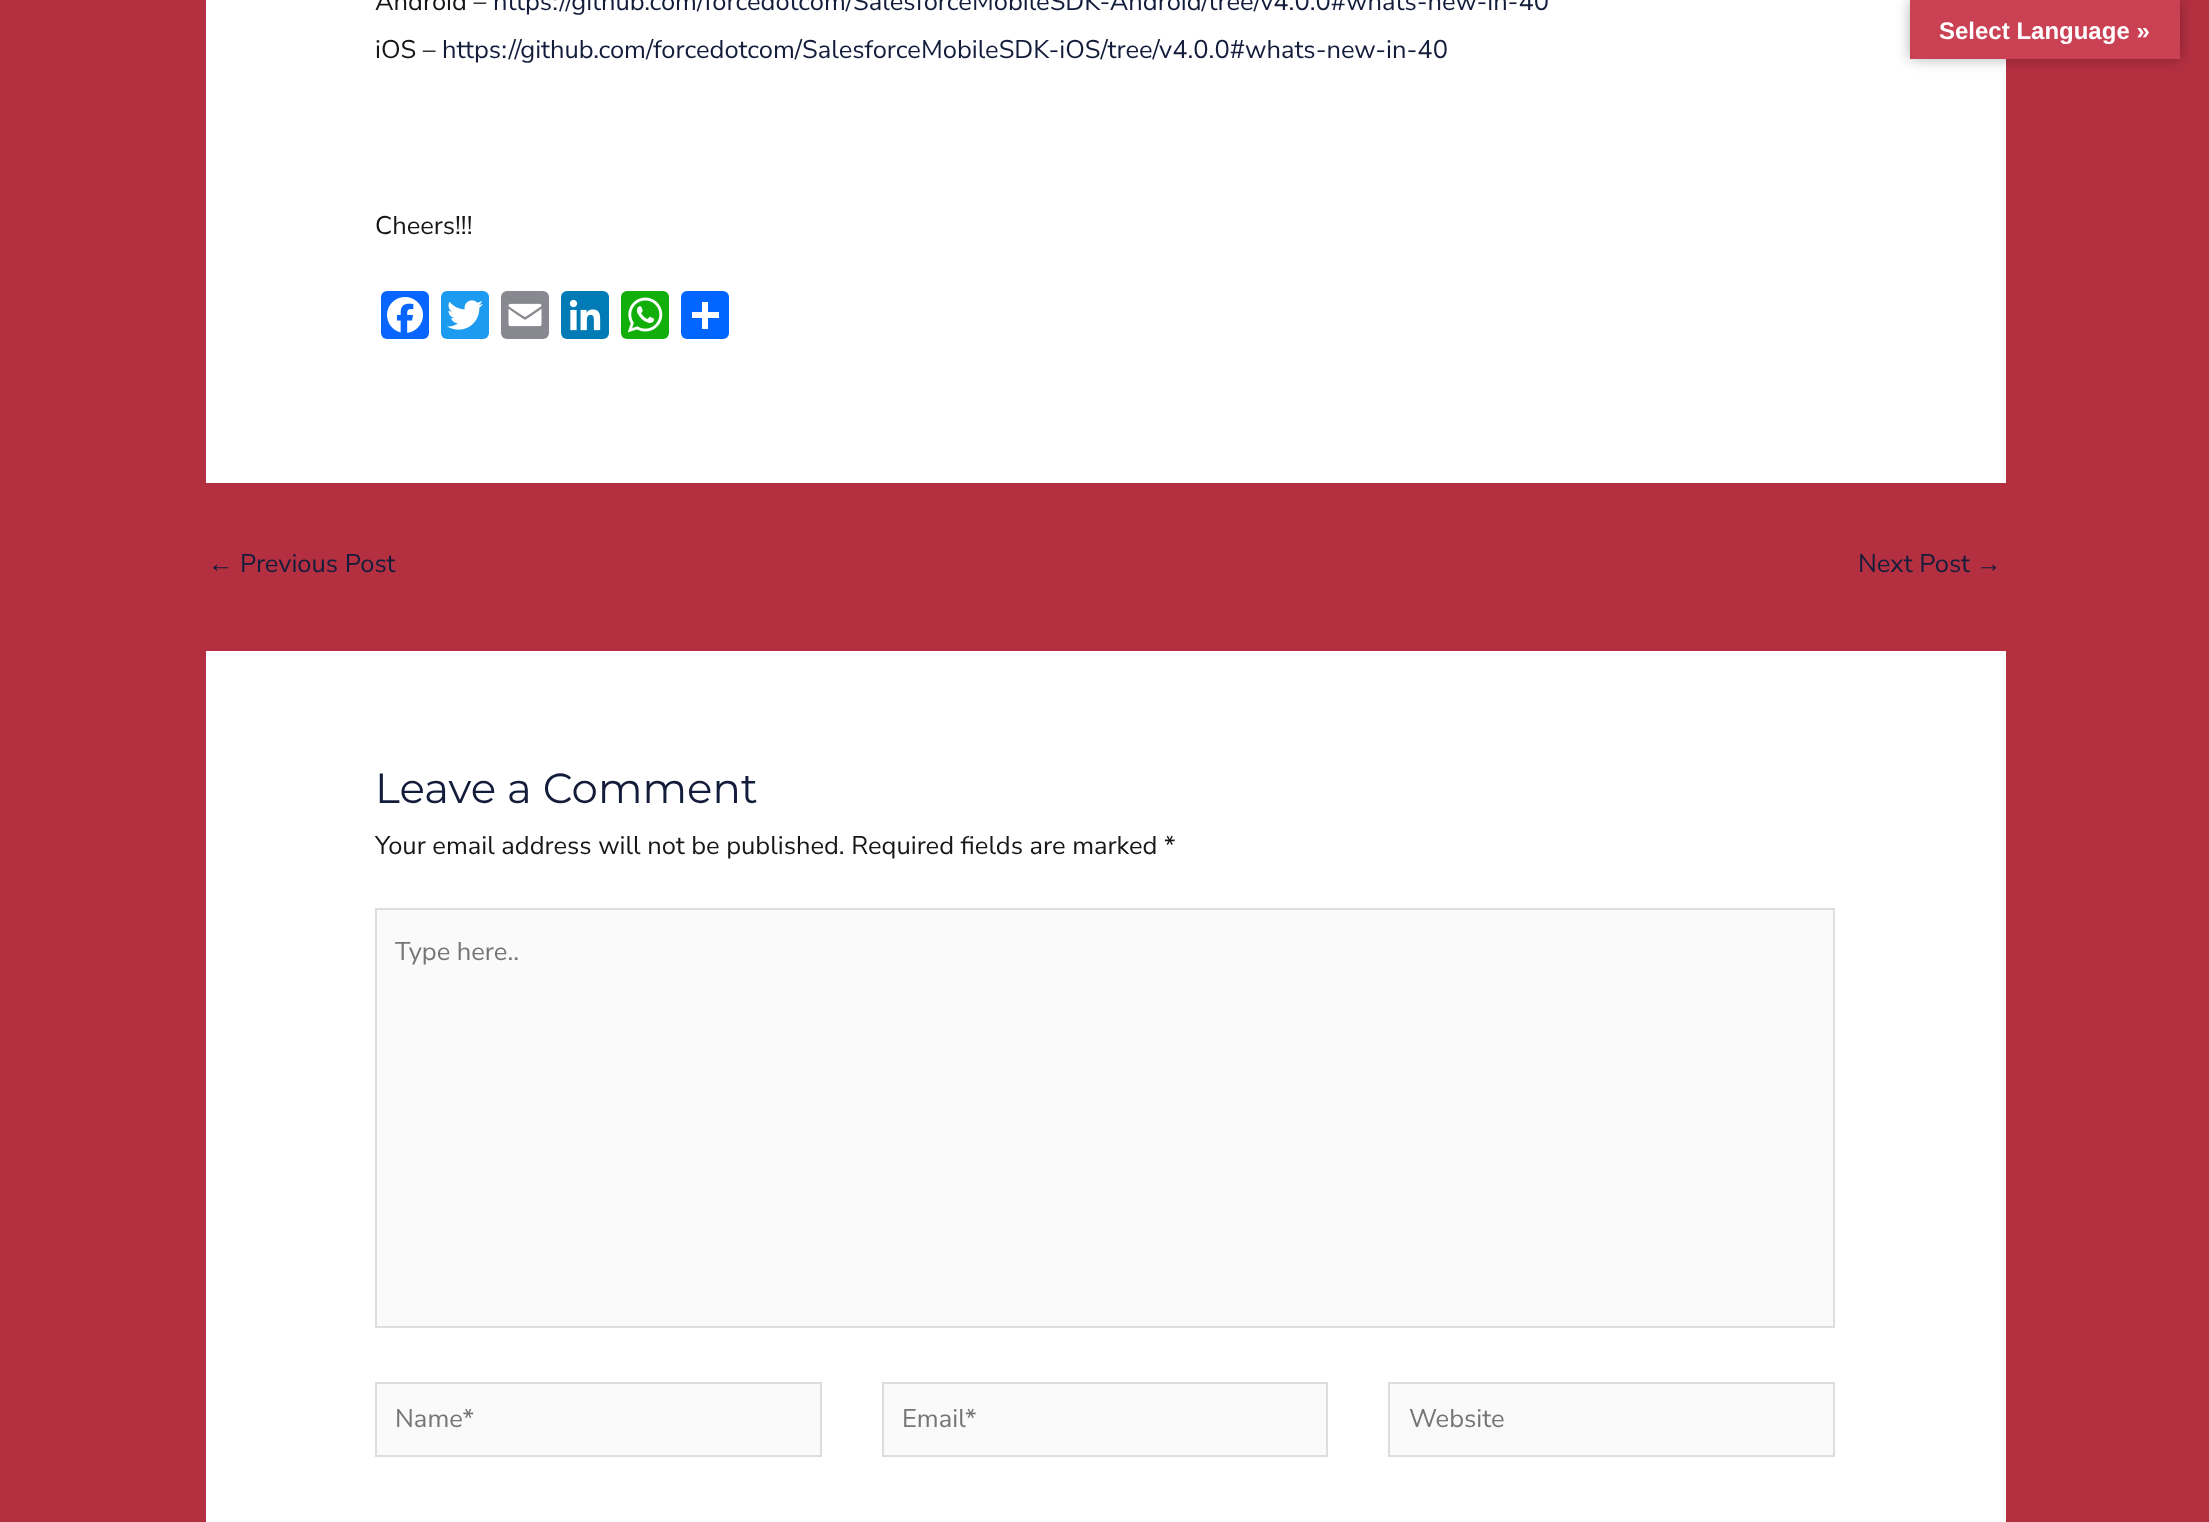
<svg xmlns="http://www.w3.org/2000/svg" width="2209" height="1522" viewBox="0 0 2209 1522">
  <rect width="100%" height="100%" fill="rgb(180,48,65)"/>
  <rect x="206" y="0" width="1800" height="483" fill="rgb(255,255,255)"/>
  <text x="375" y="10" font-family="Nunito Sans" font-size="25.5" font-weight="200" fill="rgb(23,23,23)">Android –</text>
  <text x="493" y="10" font-family="Nunito Sans" font-size="25.5" font-weight="200" fill="rgb(19,29,59)">https://github.com/forcedotcom/SalesforceMobileSDK-Android/tree/v4.0.0#whats-new-in-40</text>
  <text x="375" y="58" font-family="Nunito Sans" font-size="25.5" font-weight="200" fill="rgb(23,23,23)">iOS –</text>
  <text x="442" y="58" font-family="Nunito Sans" font-size="25.5" font-weight="200" fill="rgb(19,29,59)">https://github.com/forcedotcom/SalesforceMobileSDK-iOS/tree/v4.0.0#whats-new-in-40</text>
  <text x="375" y="234" font-family="Nunito Sans" font-size="25.5" font-weight="200" fill="rgb(23,23,23)">Cheers!!!</text>
  <rect x="381" y="291" width="48" height="48" rx="6" fill="rgb(8,102,255)"/>
  <image x="387" y="297" width="36" height="36" href="pic1.png"/>
  <rect x="441" y="291" width="48" height="48" rx="6" fill="rgb(29,155,240)"/>
  <image x="447" y="300" width="36" height="30" href="pic2.png"/>
  <rect x="501" y="291" width="48" height="48" rx="6" fill="rgb(136,137,144)"/>
  <image x="508" y="303" width="34" height="24" href="pic3.png"/>
  <rect x="561" y="291" width="48" height="48" rx="6" fill="rgb(0,123,181)"/>
  <image x="569" y="299" width="32" height="32" href="pic4.png"/>
  <rect x="621" y="291" width="48" height="48" rx="6" fill="rgb(18,175,10)"/>
  <image x="627" y="297" width="36" height="36" href="pic5.png"/>
  <rect x="681" y="291" width="48" height="48" rx="6" fill="rgb(1,102,255)"/>
  <rect x="702" y="302" width="6" height="27" fill="rgb(255,255,255)"/>
  <rect x="692" y="312" width="27" height="6" fill="rgb(255,255,255)"/>
  <text x="208" y="572" font-family="Liberation Sans" font-size="25.5" fill="rgb(19,29,59)">←</text>
  <g font-family="Nunito Sans" font-size="25.5" font-weight="200" fill="rgb(19,29,59)">
    <text x="240" y="572">Previous Post</text>
    <text x="1858" y="572">Next Post</text>
  </g>
  <text x="1976" y="572" font-family="Liberation Sans" font-size="25.5" fill="rgb(19,29,59)">→</text>
  <rect x="206" y="651" width="1800" height="871" fill="rgb(255,255,255)"/>
  <text x="375" y="803" font-family="Montserrat" font-size="42" fill="rgb(19,29,59)">Leave a Comment</text>
  <text x="375" y="854" font-family="Nunito Sans" font-size="25.5" font-weight="200" fill="rgb(23,23,23)">Your email address will not be published. Required fields are marked *</text>
  <rect x="376" y="909" width="1458" height="418" fill="rgb(250,250,250)" stroke="rgb(221,221,221)" stroke-width="2"/>
  <text x="395" y="960" font-family="Nunito Sans" font-size="25.5" font-weight="200" fill="rgb(117,117,117)">Type here..</text>
  <rect x="376" y="1383" width="445" height="73" fill="rgb(250,250,250)" stroke="rgb(221,221,221)" stroke-width="2"/>
  <text x="395" y="1427" font-family="Nunito Sans" font-size="25.5" font-weight="200" fill="rgb(117,117,117)">Name*</text>
  <rect x="883" y="1383" width="444" height="73" fill="rgb(250,250,250)" stroke="rgb(221,221,221)" stroke-width="2"/>
  <text x="902" y="1427" font-family="Nunito Sans" font-size="25.5" font-weight="200" fill="rgb(117,117,117)">Email*</text>
  <rect x="1389" y="1383" width="445" height="73" fill="rgb(250,250,250)" stroke="rgb(221,221,221)" stroke-width="2"/>
  <text x="1409" y="1427" font-family="Nunito Sans" font-size="25.5" font-weight="200" fill="rgb(117,117,117)">Website</text>
  <rect x="1910" y="0" width="270" height="59" fill="rgba(0,0,0,0.3)" filter="blur(7px)"/>
  <rect x="1910" y="0" width="270" height="59" fill="rgb(203,65,84)"/>
  <text x="1939" y="39" font-family="Liberation Sans" font-size="24" font-weight="bold" fill="rgb(255,255,255)">Select Language »</text>
</svg>
